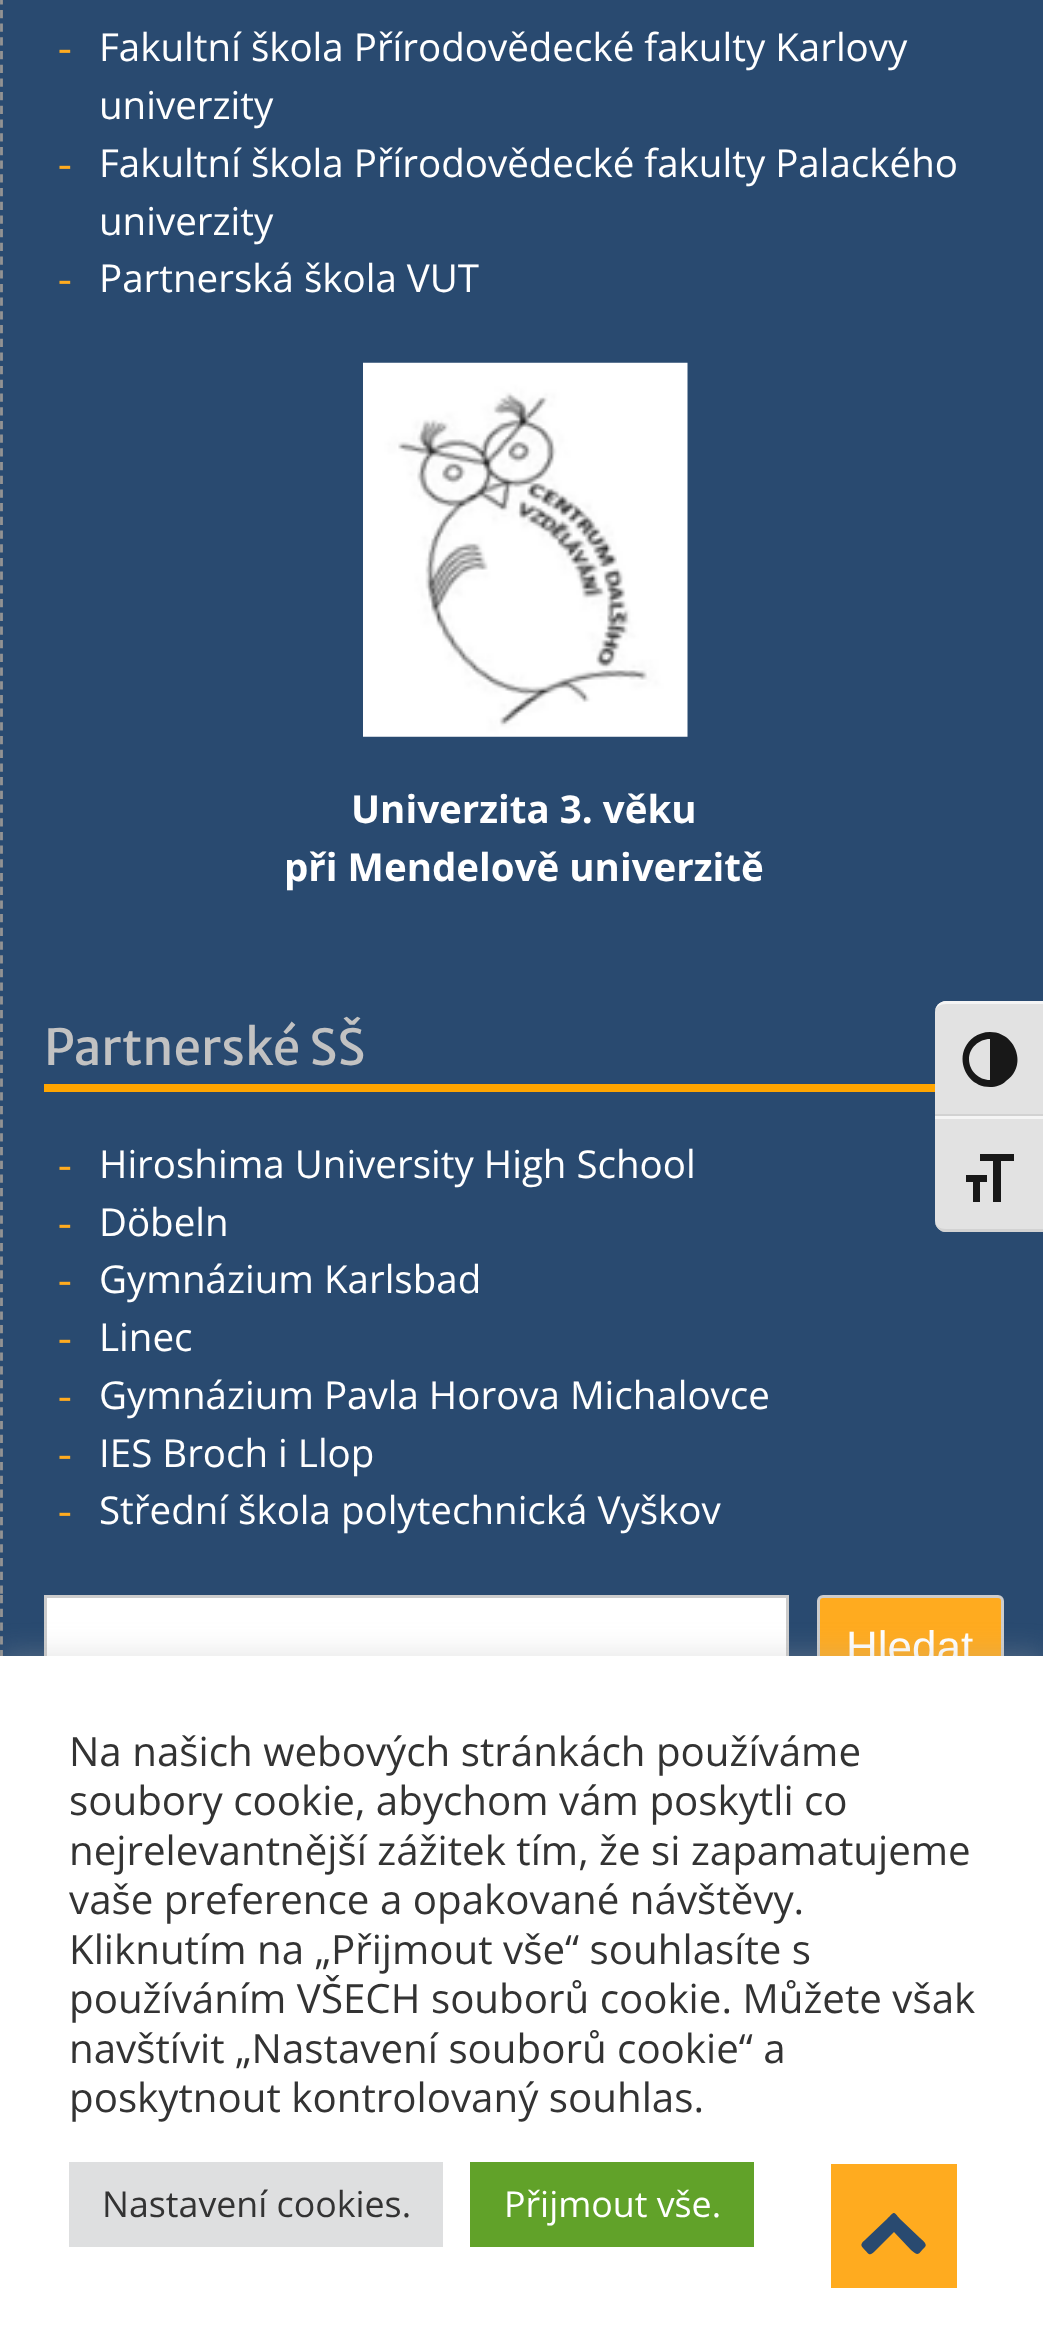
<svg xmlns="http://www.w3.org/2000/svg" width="1043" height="2329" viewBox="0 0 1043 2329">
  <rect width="100%" height="100%" fill="rgb(41,74,112)"/>
  <path d="M1.5-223V1595" fill="none" stroke="rgb(147,147,147)" stroke-width="2.8" stroke-dasharray="8.25 5.45"/>
  <text x="58" y="61" font-family="Liberation Serif" font-size="41" fill="rgb(255,171,31)">-</text>
  <g font-family="Open Sans" font-size="38.5" fill="rgb(255,255,255)">
    <text>
      <tspan x="99" y="61">Fakultní škola Přírodovědecké fakulty Karlovy</tspan>
      <tspan x="99" y="119">univerzity</tspan>
    </text>
  </g>
  <text x="58" y="177" font-family="Liberation Serif" font-size="41" fill="rgb(255,171,31)">-</text>
  <g font-family="Open Sans" font-size="38.5" fill="rgb(255,255,255)">
    <text>
      <tspan x="99" y="177">Fakultní škola Přírodovědecké fakulty Palackého</tspan>
      <tspan x="99" y="235">univerzity</tspan>
    </text>
  </g>
  <text x="58" y="292" font-family="Liberation Serif" font-size="41" fill="rgb(255,171,31)">-</text>
  <text x="99" y="292" font-family="Open Sans" font-size="38.5" fill="rgb(255,255,255)">Partnerská škola VUT</text>
  <image x="363" y="362" width="325" height="375" href="pic1.png"/>
  <g font-family="Open Sans" font-size="38.5" font-weight="bold" fill="rgb(255,255,255)">
    <text x="351" y="823">Univerzita 3. věku</text>
    <text x="284" y="881">při Mendelově univerzitě</text>
  </g>
  <rect x="44" y="1084" width="891" height="8" fill="rgb(255,165,0)"/>
  <text x="44" y="1065" font-family="Merriweather Sans" font-size="49.5" fill="rgb(194,194,194)">Partnerské SŠ</text>
  <text x="58" y="1178" font-family="Liberation Serif" font-size="41" fill="rgb(255,171,31)">-</text>
  <text x="99" y="1178" font-family="Open Sans" font-size="38.5" fill="rgb(255,255,255)">Hiroshima University High School</text>
  <text x="58" y="1236" font-family="Liberation Serif" font-size="41" fill="rgb(255,171,31)">-</text>
  <text x="99" y="1236" font-family="Open Sans" font-size="38.5" fill="rgb(255,255,255)">Döbeln</text>
  <text x="58" y="1293" font-family="Liberation Serif" font-size="41" fill="rgb(255,171,31)">-</text>
  <text x="99" y="1293" font-family="Open Sans" font-size="38.5" fill="rgb(255,255,255)">Gymnázium Karlsbad</text>
  <text x="58" y="1351" font-family="Liberation Serif" font-size="41" fill="rgb(255,171,31)">-</text>
  <text x="99" y="1351" font-family="Open Sans" font-size="38.5" fill="rgb(255,255,255)">Linec</text>
  <text x="58" y="1409" font-family="Liberation Serif" font-size="41" fill="rgb(255,171,31)">-</text>
  <text x="99" y="1409" font-family="Open Sans" font-size="38.5" fill="rgb(255,255,255)">Gymnázium Pavla Horova Michalovce</text>
  <text x="58" y="1467" font-family="Liberation Serif" font-size="41" fill="rgb(255,171,31)">-</text>
  <text x="99" y="1467" font-family="Open Sans" font-size="38.5" fill="rgb(255,255,255)">IES Broch i Llop</text>
  <text x="58" y="1524" font-family="Liberation Serif" font-size="41" fill="rgb(255,171,31)">-</text>
  <text x="99" y="1524" font-family="Open Sans" font-size="38.5" fill="rgb(255,255,255)">Střední škola polytechnická Vyškov</text>
  <path d="M1.5 1595V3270" fill="none" stroke="rgb(147,147,147)" stroke-width="2.8" stroke-dasharray="8.25 5.53"/>
  <rect x="47" y="1598" width="739" height="58" fill="rgb(255,255,255)"/>
  <rect x="45.5" y="1596.5" width="742" height="102" fill="none" stroke="rgb(204,204,204)" stroke-width="3"/>
  <rect x="818.5" y="1596.5" width="184" height="102" rx="4.5" fill="rgb(255,171,31)" stroke="rgb(204,204,204)" stroke-width="3"/>
  <text x="846" y="1662" font-family="Liberation Sans" font-size="44" fill="rgb(255,255,255)">Hledat</text>
  <path d="M946 1001H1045V1117H935V1012C935 1006 940 1001 946 1001Z" fill="rgb(226,226,226)"/>
  <path d="M946 1004H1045V1001H946C940 1001 935 1006 935 1012C935 1007 940 1004 946 1004Z" fill="rgb(245,245,245)"/>
  <rect x="935" y="1114" width="108" height="2" fill="rgb(210,210,210)"/>
  <path d="M990 1032C984 1032 978 1034 974 1037C952 1053 964 1087 990 1087C996 1087 1002 1085 1006 1081C1028 1066 1016 1032 990 1032ZM969 1059C969 1048 979 1039 990 1039V1080C979 1080 969 1071 969 1059Z" fill="rgb(24,24,24)"/>
  <path d="M935 1117H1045V1232H946C940 1232 935 1227 935 1221Z" fill="rgb(226,226,226)"/>
  <rect x="935" y="1116" width="108" height="3" fill="rgb(245,245,245)"/>
  <path d="M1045 1232V1229H946C940 1229 935 1226 935 1221C935 1227 940 1232 946 1232Z" fill="rgb(210,210,210)"/>
  <path d="M966 1175H987V1182H980V1202H973V1182H966ZM1014 1161H1001V1202H993V1161H980V1154H1014Z" fill="rgb(24,24,24)"/>
  <rect x="0" y="1653" width="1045" height="674" fill="rgba(172,171,171,0.3)" filter="blur(14px)"/>
  <rect x="0" y="1656" width="1043" height="673" fill="rgb(255,255,255)"/>
  <g font-family="Open Sans" font-size="40.3" fill="rgb(51,51,51)">
    <text>
      <tspan x="69" y="1766">Na našich webových stránkách používáme</tspan>
      <tspan x="69" y="1815">soubory cookie, abychom vám poskytli co</tspan>
      <tspan x="69" y="1865">nejrelevantnější zážitek tím, že si zapamatujeme</tspan>
      <tspan x="69" y="1914">vaše preference a opakované návštěvy.</tspan>
      <tspan x="69" y="1964">Kliknutím na „Přijmout vše“ souhlasíte s</tspan>
      <tspan x="69" y="2013">používáním VŠECH souborů cookie. Můžete však</tspan>
      <tspan x="69" y="2063">navštívit „Nastavení souborů cookie“ a</tspan>
      <tspan x="69" y="2112">poskytnout kontrolovaný souhlas.</tspan>
    </text>
  </g>
  <rect x="69" y="2162" width="374" height="85" fill="rgb(222,223,224)"/>
  <text x="102" y="2217" font-family="Open Sans" font-size="35.75" fill="rgb(51,51,51)">Nastavení cookies.</text>
  <rect x="470" y="2162" width="284" height="85" fill="rgb(97,162,41)"/>
  <text x="504" y="2217" font-family="Open Sans" font-size="35.75" fill="rgb(255,255,255)">Přijmout vše.</text>
  <rect x="831" y="2164" width="126" height="124" fill="rgb(255,171,31)"/>
  <path d="M925 2247C918 2254 919 2257 911 2250L894 2232L876 2250C869 2257 870 2255 863 2248C859 2244 863 2242 867 2238L887 2219C895 2211 893 2211 900 2219L920 2238C921 2239 928 2244 925 2247Z" fill="rgb(41,74,112)"/>
</svg>
